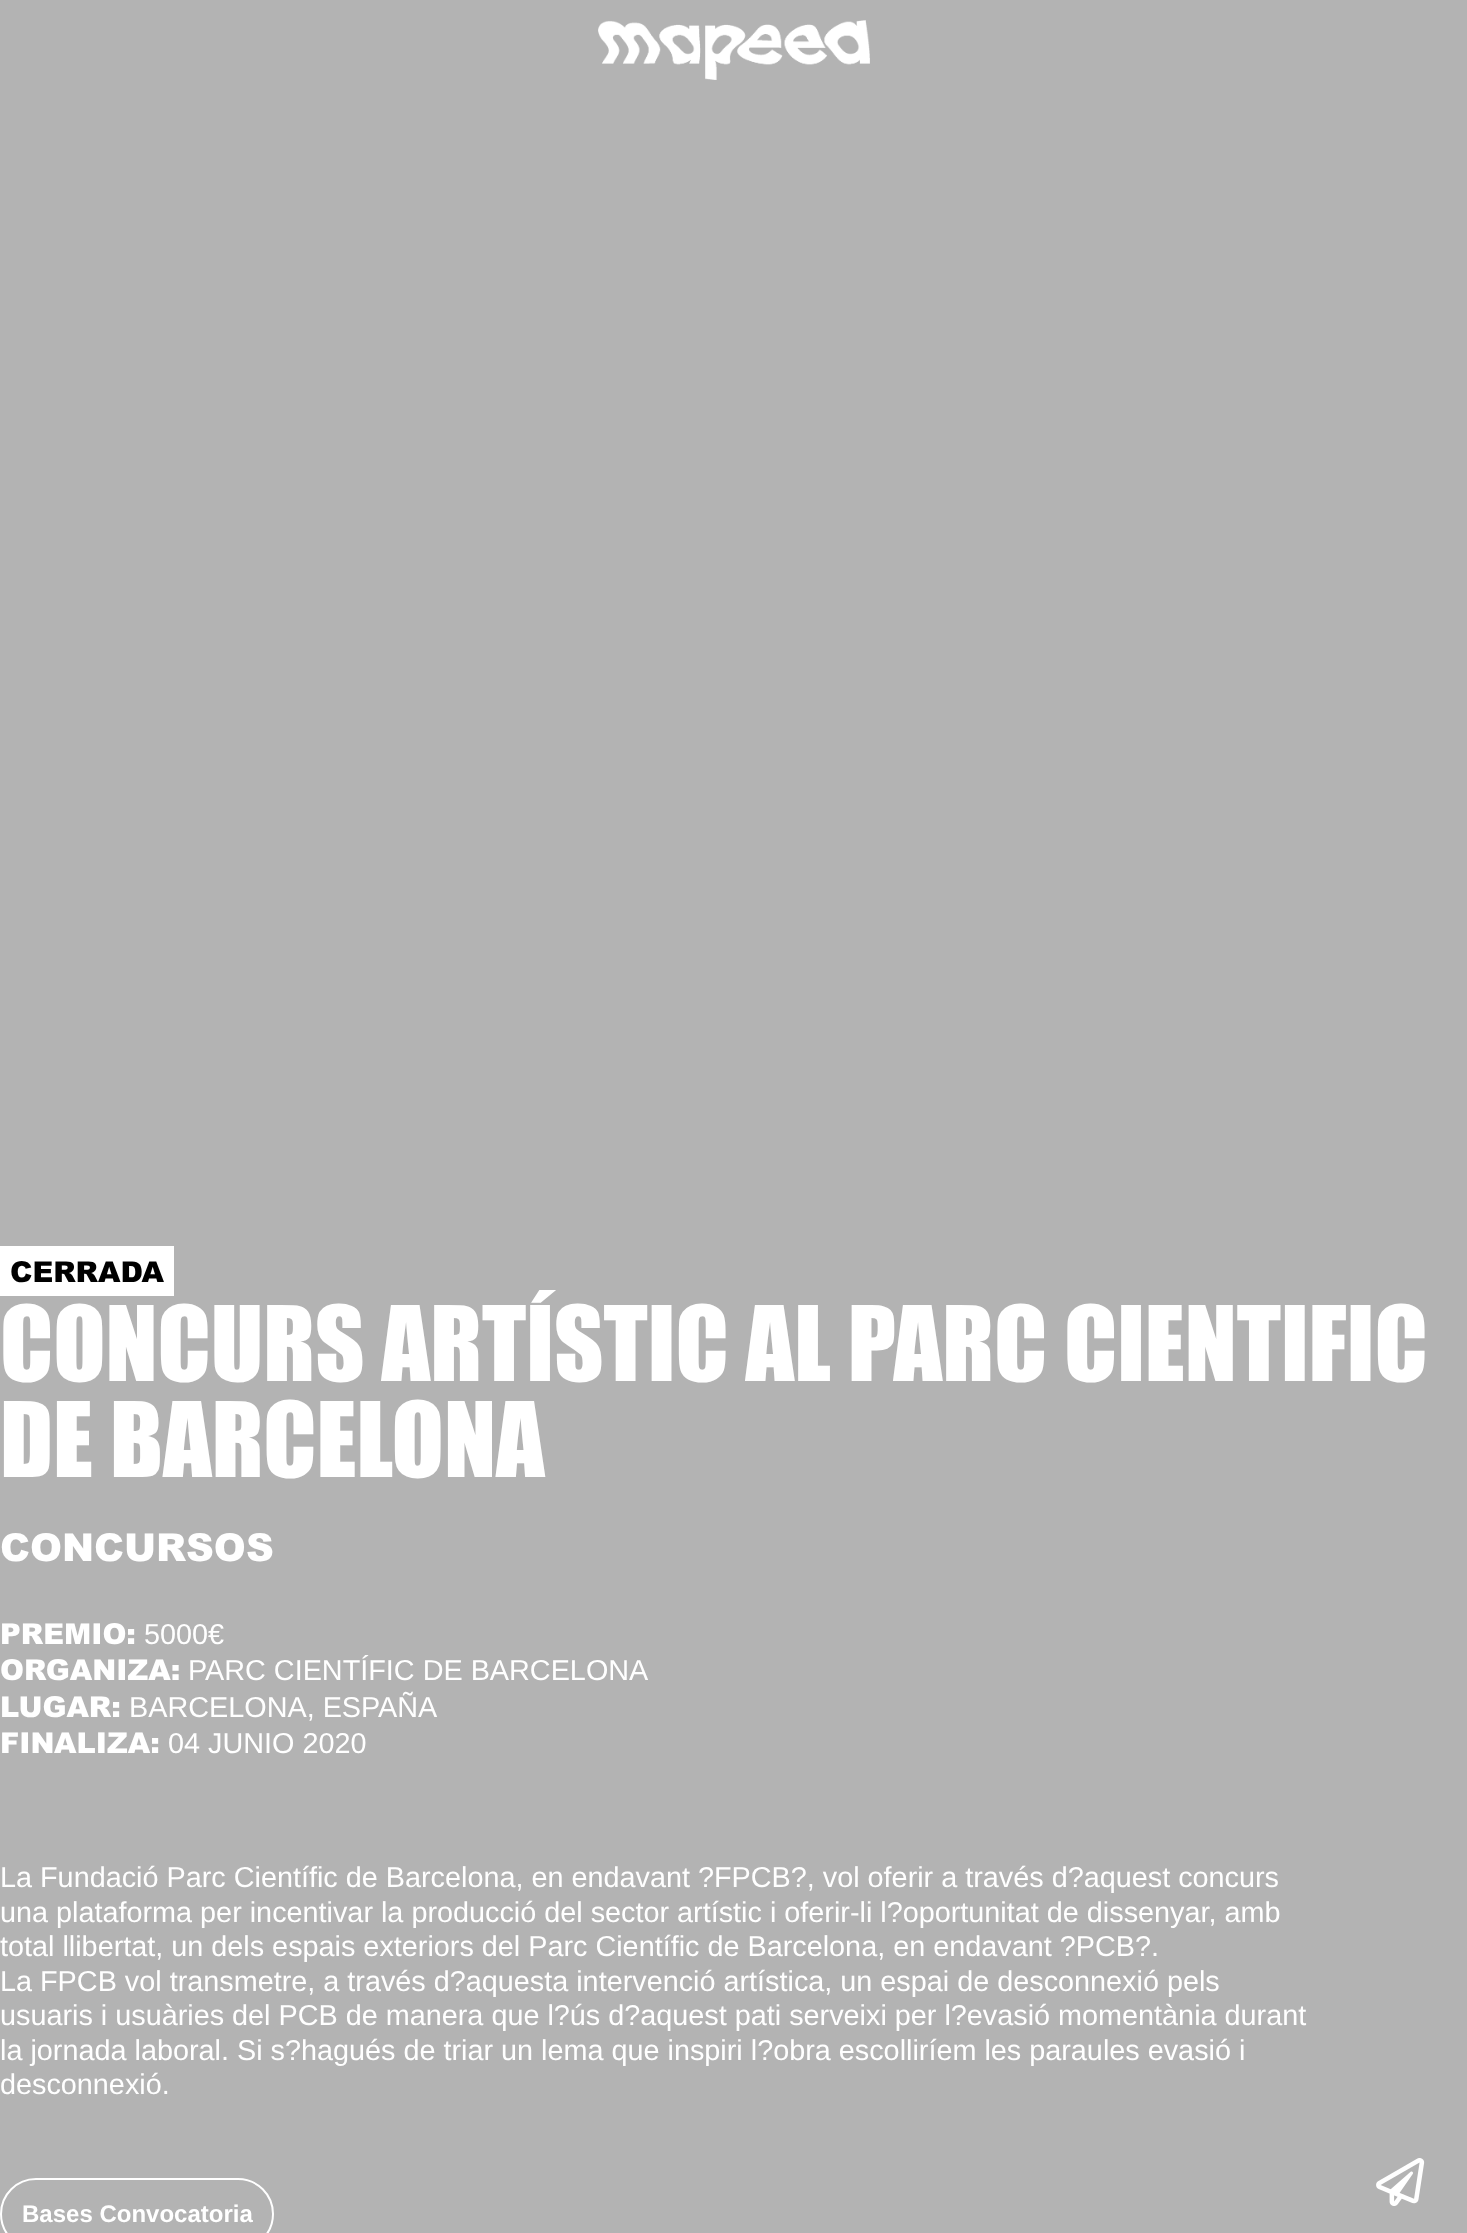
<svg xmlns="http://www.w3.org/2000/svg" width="1467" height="2233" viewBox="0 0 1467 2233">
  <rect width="100%" height="100%" fill="rgb(179,179,179)"/>
  <image x="598" y="20" width="272" height="60" href="pic1.png"/>
  <rect x="0" y="1246" width="174" height="50" fill="rgb(255,255,255)"/>
  <text x="10" y="1282" font-family="Arial" font-size="28.8" font-weight="900" fill="rgb(0,0,0)">CERRADA</text>
  <g font-family="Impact" font-size="96" fill="rgb(255,255,255)">
    <text>
      <tspan x="0" y="1381">CONCURS ARTÍSTIC AL PARC CIENTIFIC</tspan>
      <tspan x="0" y="1477">DE BARCELONA</tspan>
    </text>
  </g>
  <text x="0" y="1561" font-family="Arial" font-size="38.5" font-weight="900" fill="rgb(255,255,255)">CONCURSOS</text>
  <text x="0" y="1644" font-family="Arial" font-size="28.8" font-weight="900" fill="rgb(255,255,255)">PREMIO:</text>
  <text x="144" y="1644" font-family="Liberation Sans" font-size="28.8" fill="rgb(255,255,255)">5000€</text>
  <text x="0" y="1680" font-family="Arial" font-size="28.8" font-weight="900" fill="rgb(255,255,255)">ORGANIZA:</text>
  <text x="188" y="1680" font-family="Liberation Sans" font-size="28.8" fill="rgb(255,255,255)">PARC CIENTÍFIC DE BARCELONA</text>
  <text x="0" y="1717" font-family="Arial" font-size="28.8" font-weight="900" fill="rgb(255,255,255)">LUGAR:</text>
  <text x="129" y="1717" font-family="Liberation Sans" font-size="28.8" fill="rgb(255,255,255)">BARCELONA, ESPAÑA</text>
  <text x="0" y="1753" font-family="Arial" font-size="28.8" font-weight="900" fill="rgb(255,255,255)">FINALIZA:</text>
  <g font-family="Liberation Sans" font-size="28.8" fill="rgb(255,255,255)">
    <text x="168" y="1753">04 JUNIO 2020</text>
    <text>
      <tspan x="0" y="1887">La Fundació Parc Científic de Barcelona, en endavant ?FPCB?, vol oferir a través d?aquest concurs</tspan>
      <tspan x="0" y="1922">una plataforma per incentivar la producció del sector artístic i oferir-li l?oportunitat de dissenyar, amb</tspan>
      <tspan x="0" y="1956">total llibertat, un dels espais exteriors del Parc Científic de Barcelona, en endavant ?PCB?.</tspan>
      <tspan x="0" y="1991">La FPCB vol transmetre, a través d?aquesta intervenció artística, un espai de desconnexió pels</tspan>
      <tspan x="0" y="2025">usuaris i usuàries del PCB de manera que l?ús d?aquest pati serveixi per l?evasió momentània durant</tspan>
      <tspan x="0" y="2060">la jornada laboral. Si s?hagués de triar un lema que inspiri l?obra escolliríem les paraules evasió i</tspan>
      <tspan x="0" y="2094">desconnexió.</tspan>
    </text>
  </g>
  <rect x="1" y="2179" width="272" height="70" rx="35" fill="none" stroke="rgb(255,255,255)" stroke-width="2"/>
  <text x="22" y="2222" font-family="Liberation Sans" font-size="24" font-weight="bold" fill="rgb(255,255,255)">Bases Convocatoria</text>
  <image x="1376" y="2158" width="49" height="48" href="pic2.png"/>
</svg>
